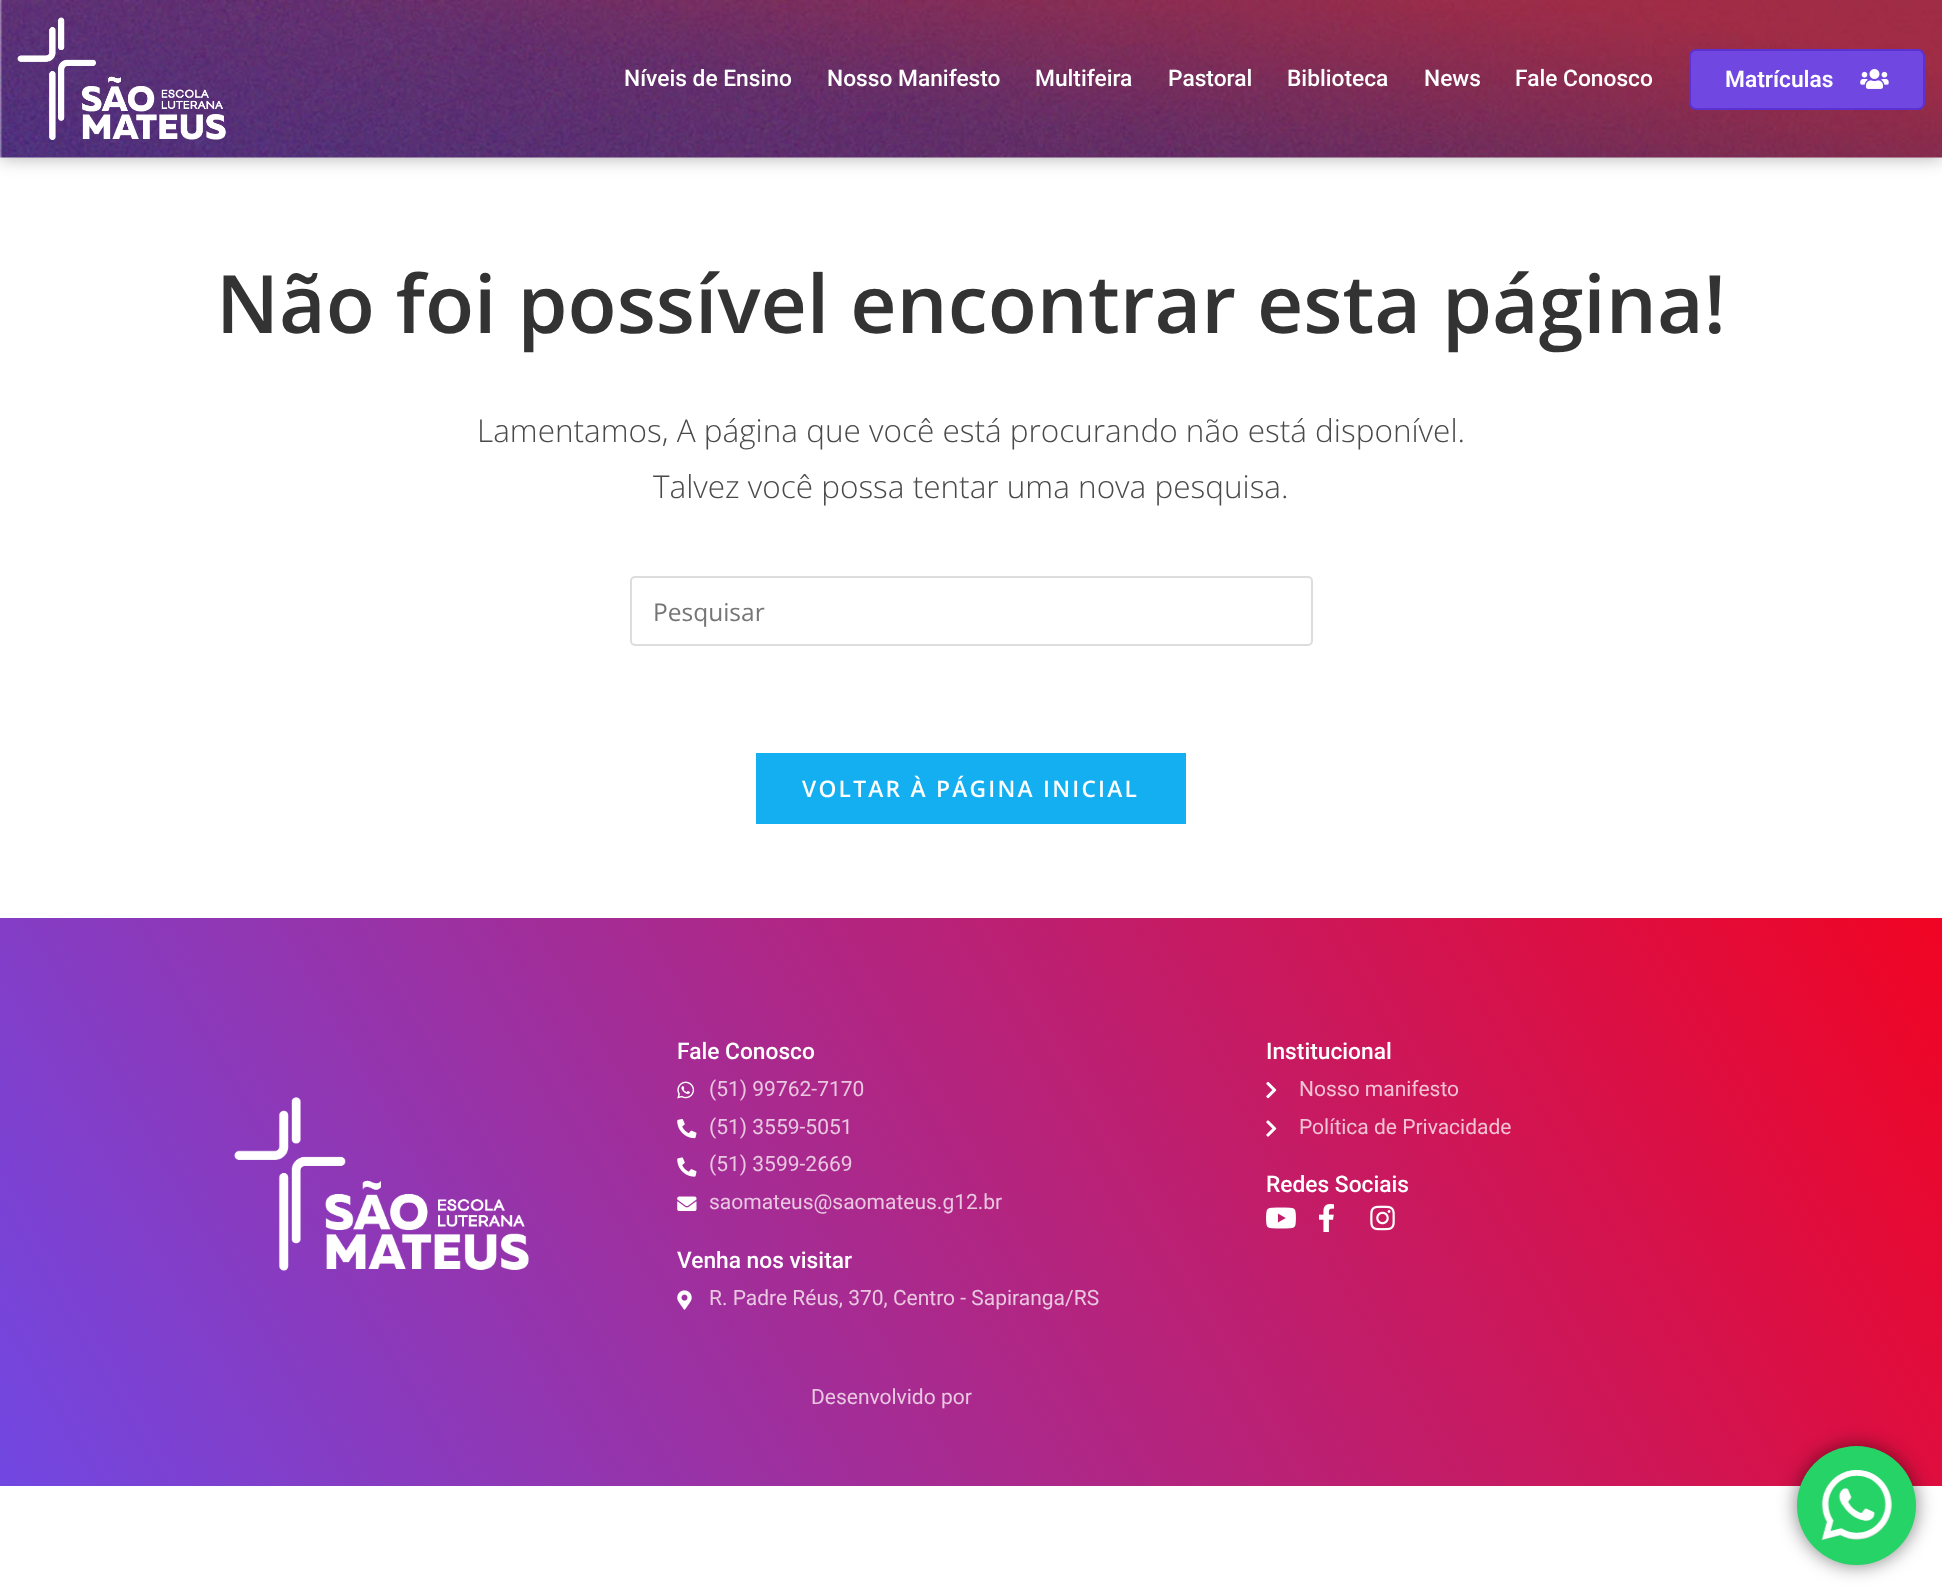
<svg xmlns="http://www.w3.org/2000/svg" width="1942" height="1590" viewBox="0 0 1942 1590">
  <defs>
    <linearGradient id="g1" gradientUnits="userSpaceOnUse" x1="120" y1="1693" x2="1823" y2="710"><stop offset="0" stop-color="rgb(113,71,226)"/><stop offset="1" stop-color="rgb(241,4,35)"/></linearGradient>
  </defs>
  <rect width="100%" height="100%" fill="rgb(255,255,255)"/>
  <rect x="0" y="0" width="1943" height="158" fill="rgba(0,0,0,0.3)" filter="blur(9px)"/>
  <image x="0" y="0" width="1942" height="158" href="pic1.png"/>
  <image x="17" y="17" width="209" height="123" href="pic2.png"/>
  <g font-family="Roboto" font-size="22.75" font-weight="500" fill="rgb(255,255,255)">
    <text x="624" y="86">Níveis de Ensino</text>
    <text x="827" y="86">Nosso Manifesto</text>
    <text x="1035" y="86">Multifeira</text>
    <text x="1168" y="86">Pastoral</text>
    <text x="1287" y="86">Biblioteca</text>
    <text x="1424" y="86">News</text>
    <text x="1515" y="86">Fale Conosco</text>
  </g>
  <rect x="1690" y="50" width="234" height="59" rx="6" fill="rgb(113,71,226)" stroke="rgb(92,49,209)" stroke-width="2"/>
  <text x="1725" y="87" font-family="Roboto" font-size="22.75" font-weight="600" fill="rgb(255,255,255)">Matrículas</text>
  <image x="1860" y="69" width="29" height="20" href="pic3.png"/>
  <text x="216" y="333" font-family="Open Sans" font-size="80.5" font-weight="600" fill="rgb(51,51,51)">Não foi possível encontrar esta página!</text>
  <g font-family="Open Sans" font-size="31.5" font-weight="300" fill="rgb(74,74,74)">
    <text x="477" y="442">Lamentamos, A página que você está procurando não está disponível.</text>
    <text x="653" y="498">Talvez você possa tentar uma nova pesquisa.</text>
  </g>
  <rect x="631" y="577" width="681" height="68" rx="4" fill="none" stroke="rgb(221,221,221)" stroke-width="2"/>
  <text x="653" y="621" font-family="Open Sans" font-size="24.5" fill="rgb(117,117,117)">Pesquisar</text>
  <rect x="756" y="753" width="430" height="71" fill="rgb(19,175,240)"/>
  <text x="802" y="797" font-family="Open Sans" font-size="22.75" font-weight="600" letter-spacing="2.25" fill="rgb(255,255,255)">VOLTAR À PÁGINA INICIAL</text>
  <rect x="0" y="918" width="1942" height="568" fill="url(#g1)"/>
  <image x="234" y="1097" width="295" height="174" href="pic4.png"/>
  <text x="677" y="1059" font-family="Roboto" font-size="22.75" font-weight="500" fill="rgb(255,255,255)">Fale Conosco</text>
  <image x="677" y="1081" width="18" height="18" href="pic5.png"/>
  <text x="709" y="1096" font-family="Roboto" font-size="21" fill="rgb(233,199,225)">(51) 99762-7170</text>
  <image x="677" y="1119" width="20" height="20" href="pic6.png"/>
  <text x="709" y="1134" font-family="Roboto" font-size="21" fill="rgb(233,199,225)">(51) 3559-5051</text>
  <image x="677" y="1157" width="20" height="20" href="pic7.png"/>
  <text x="709" y="1171" font-family="Roboto" font-size="21" fill="rgb(233,199,225)">(51) 3599-2669</text>
  <image x="677" y="1196" width="20" height="15" href="pic8.png"/>
  <text x="709" y="1209" font-family="Roboto" font-size="21" fill="rgb(233,199,225)">saomateus@saomateus.g12.br</text>
  <text x="677" y="1268" font-family="Roboto" font-size="22.75" font-weight="500" fill="rgb(255,255,255)">Venha nos visitar</text>
  <image x="677" y="1290" width="15" height="20" href="pic9.png"/>
  <text x="709" y="1305" font-family="Roboto" font-size="21" fill="rgb(233,199,225)">R. Padre Réus, 370, Centro - Sapiranga/RS</text>
  <text x="1266" y="1059" font-family="Roboto" font-size="22.75" font-weight="500" fill="rgb(255,255,255)">Institucional</text>
  <image x="1266" y="1081" width="11" height="18" href="pic10.png"/>
  <text x="1299" y="1096" font-family="Roboto" font-size="21" fill="rgb(242,195,212)">Nosso manifesto</text>
  <image x="1266" y="1120" width="11" height="17" href="pic11.png"/>
  <text x="1299" y="1134" font-family="Roboto" font-size="21" fill="rgb(242,195,212)">Política de Privacidade</text>
  <text x="1266" y="1192" font-family="Roboto" font-size="22.75" font-weight="500" fill="rgb(255,255,255)">Redes Sociais</text>
  <image x="1266" y="1207" width="30" height="22" href="pic12.png"/>
  <image x="1319" y="1204" width="15" height="28" href="pic13.png"/>
  <image x="1370" y="1205" width="25" height="26" href="pic14.png"/>
  <text x="811" y="1404" font-family="Roboto" font-size="21" fill="rgb(233,199,225)">Desenvolvido por</text>
  <rect x="1797" y="1446" width="119" height="119" rx="59.5" fill="rgba(0,0,0,0.5)" filter="blur(9.5px)"/>
  <circle cx="1856.5" cy="1505.5" r="59.5" fill="rgb(37,211,102)"/>
  <image x="1821" y="1470" width="71" height="70" href="pic15.png"/>
</svg>
